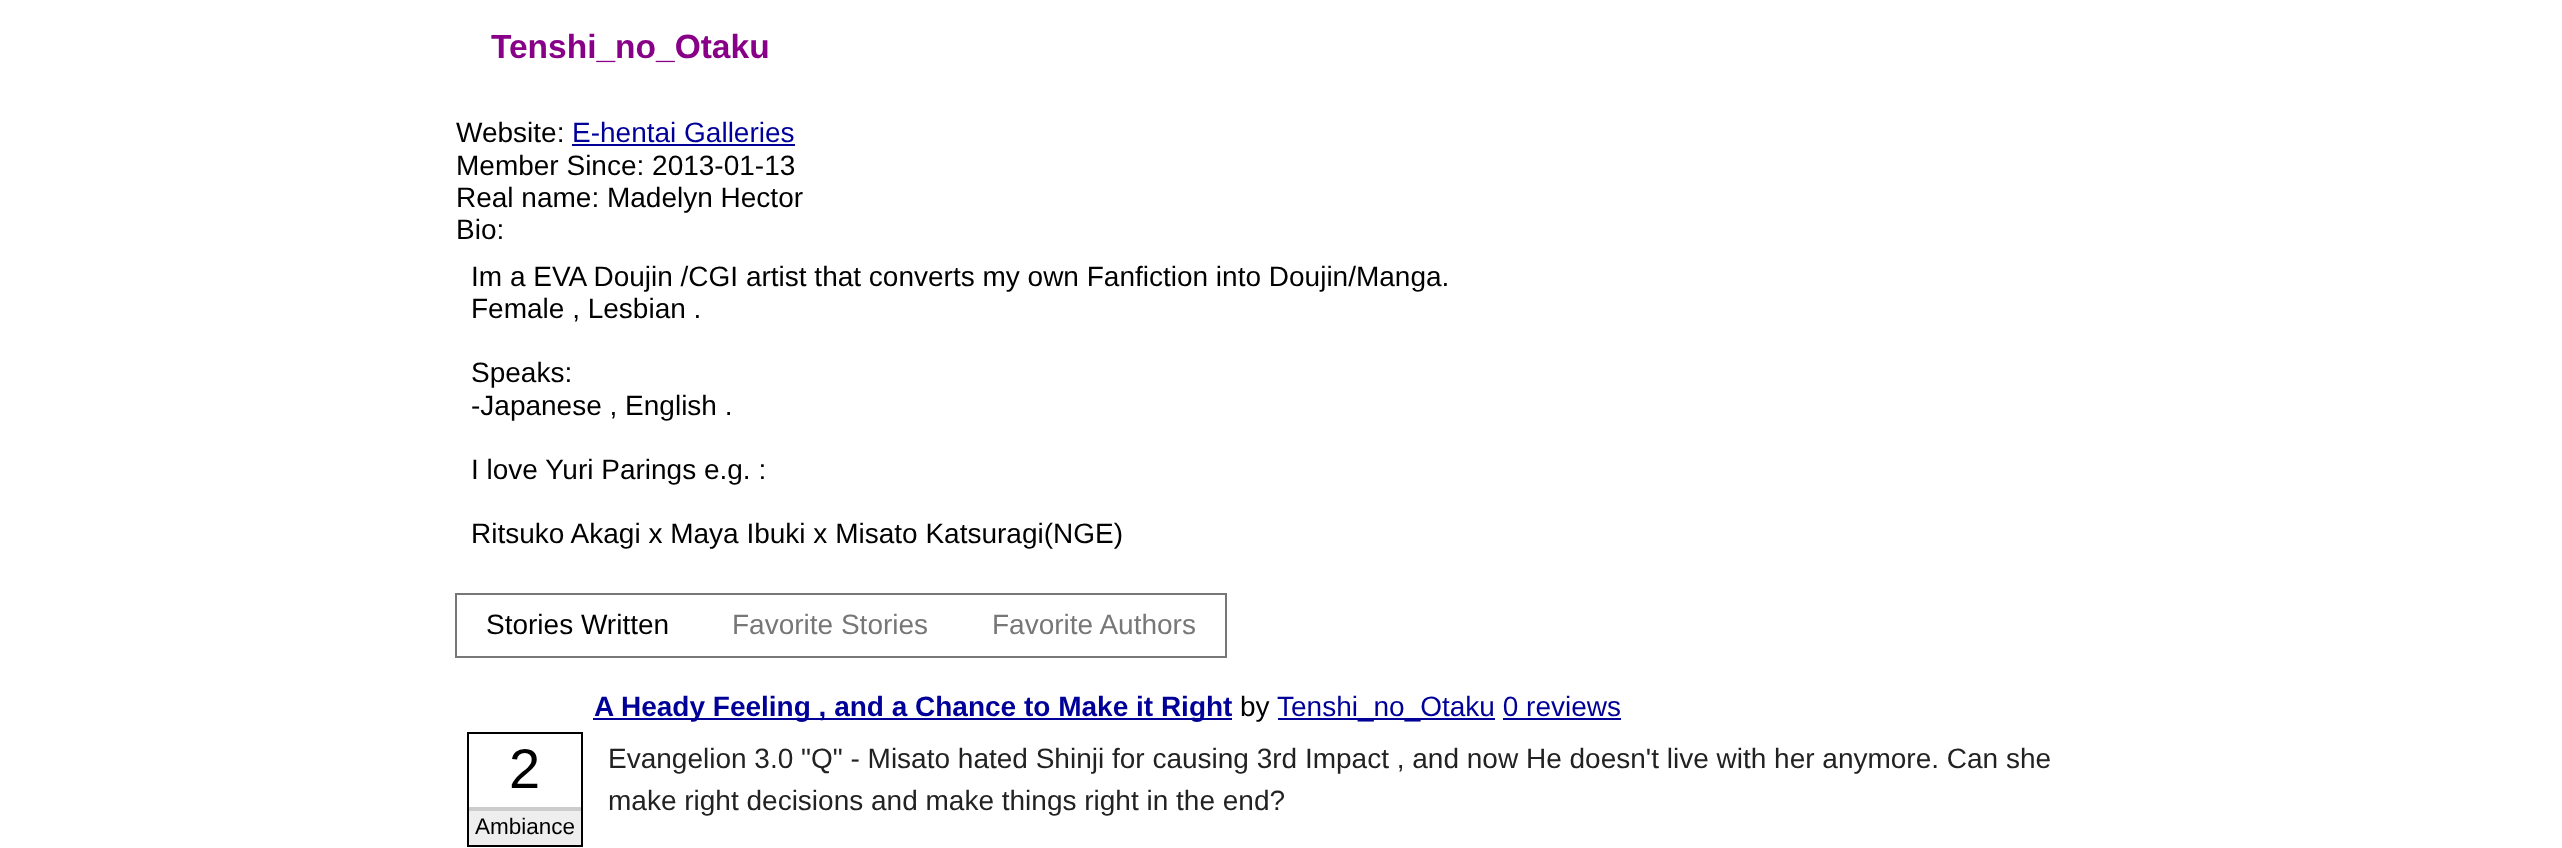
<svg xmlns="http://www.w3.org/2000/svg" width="2562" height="848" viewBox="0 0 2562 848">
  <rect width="100%" height="100%" fill="rgb(255,255,255)"/>
  <text x="491" y="58" font-family="Liberation Sans" font-size="33.5" font-weight="bold" fill="rgb(136,0,136)">Tenshi_no_Otaku</text>
  <text x="456" y="142" font-family="Liberation Sans" font-size="28" fill="rgb(0,0,0)">Website:</text>
  <text x="572" y="142" font-family="Liberation Sans" font-size="28" fill="rgb(0,0,153)">E-hentai Galleries</text>
  <rect x="572" y="144" width="223" height="2" fill="rgb(0,0,153)"/>
  <g font-family="Liberation Sans" font-size="28" fill="rgb(0,0,0)">
    <text>
      <tspan x="456" y="175">Member Since: 2013-01-13</tspan>
      <tspan x="456" y="207">Real name: Madelyn Hector</tspan>
      <tspan x="456" y="239">Bio:</tspan>
    </text>
    <text>
      <tspan x="471" y="286">Im a EVA Doujin /CGI artist that converts my own Fanfiction into Doujin/Manga.</tspan>
      <tspan x="471" y="318">Female , Lesbian .</tspan>
    </text>
    <text>
      <tspan x="471" y="382">Speaks:</tspan>
      <tspan x="471" y="415">-Japanese , English .</tspan>
    </text>
    <text x="471" y="479">I love Yuri Parings e.g. :</text>
    <text x="471" y="543">Ritsuko Akagi x Maya Ibuki x Misato Katsuragi(NGE)</text>
  </g>
  <rect x="456" y="594" width="770" height="63" fill="none" stroke="rgb(119,119,119)" stroke-width="2"/>
  <text x="486" y="634" font-family="Liberation Sans" font-size="28" fill="rgb(0,0,0)">Stories Written</text>
  <g font-family="Liberation Sans" font-size="28" fill="rgb(119,119,119)">
    <text x="732" y="634">Favorite Stories</text>
    <text x="992" y="634">Favorite Authors</text>
  </g>
  <rect x="593" y="718" width="639" height="2" fill="rgb(0,0,153)"/>
  <text x="594" y="716" font-family="Liberation Sans" font-size="28" font-weight="bold" fill="rgb(0,0,153)">A Heady Feeling , and a Chance to Make it Right</text>
  <text x="1240" y="716" font-family="Liberation Sans" font-size="28" fill="rgb(0,0,0)">by</text>
  <rect x="1278" y="718" width="217" height="2" fill="rgb(0,0,153)"/>
  <text x="1277" y="716" font-family="Liberation Sans" font-size="28" fill="rgb(0,0,153)">Tenshi_no_Otaku 0 reviews</text>
  <rect x="1503" y="718" width="118" height="2" fill="rgb(0,0,153)"/>
  <rect x="468" y="733" width="114" height="113" fill="none" stroke="rgb(0,0,0)" stroke-width="2"/>
  <text x="509" y="788" font-family="Liberation Sans" font-size="56" fill="rgb(0,0,0)">2</text>
  <rect x="469" y="811" width="112" height="34" fill="rgb(238,238,238)"/>
  <rect x="469" y="807" width="112" height="4" fill="rgb(204,204,204)"/>
  <text x="475" y="834" font-family="Liberation Sans" font-size="22.5" fill="rgb(0,0,0)">Ambiance</text>
  <g font-family="Liberation Sans" font-size="28" fill="rgb(34,34,34)">
    <text>
      <tspan x="608" y="768">Evangelion 3.0 "Q" - Misato hated Shinji for causing 3rd Impact , and now He doesn't live with her anymore. Can she</tspan>
      <tspan x="608" y="810">make right decisions and make things right in the end?</tspan>
    </text>
  </g>
</svg>
